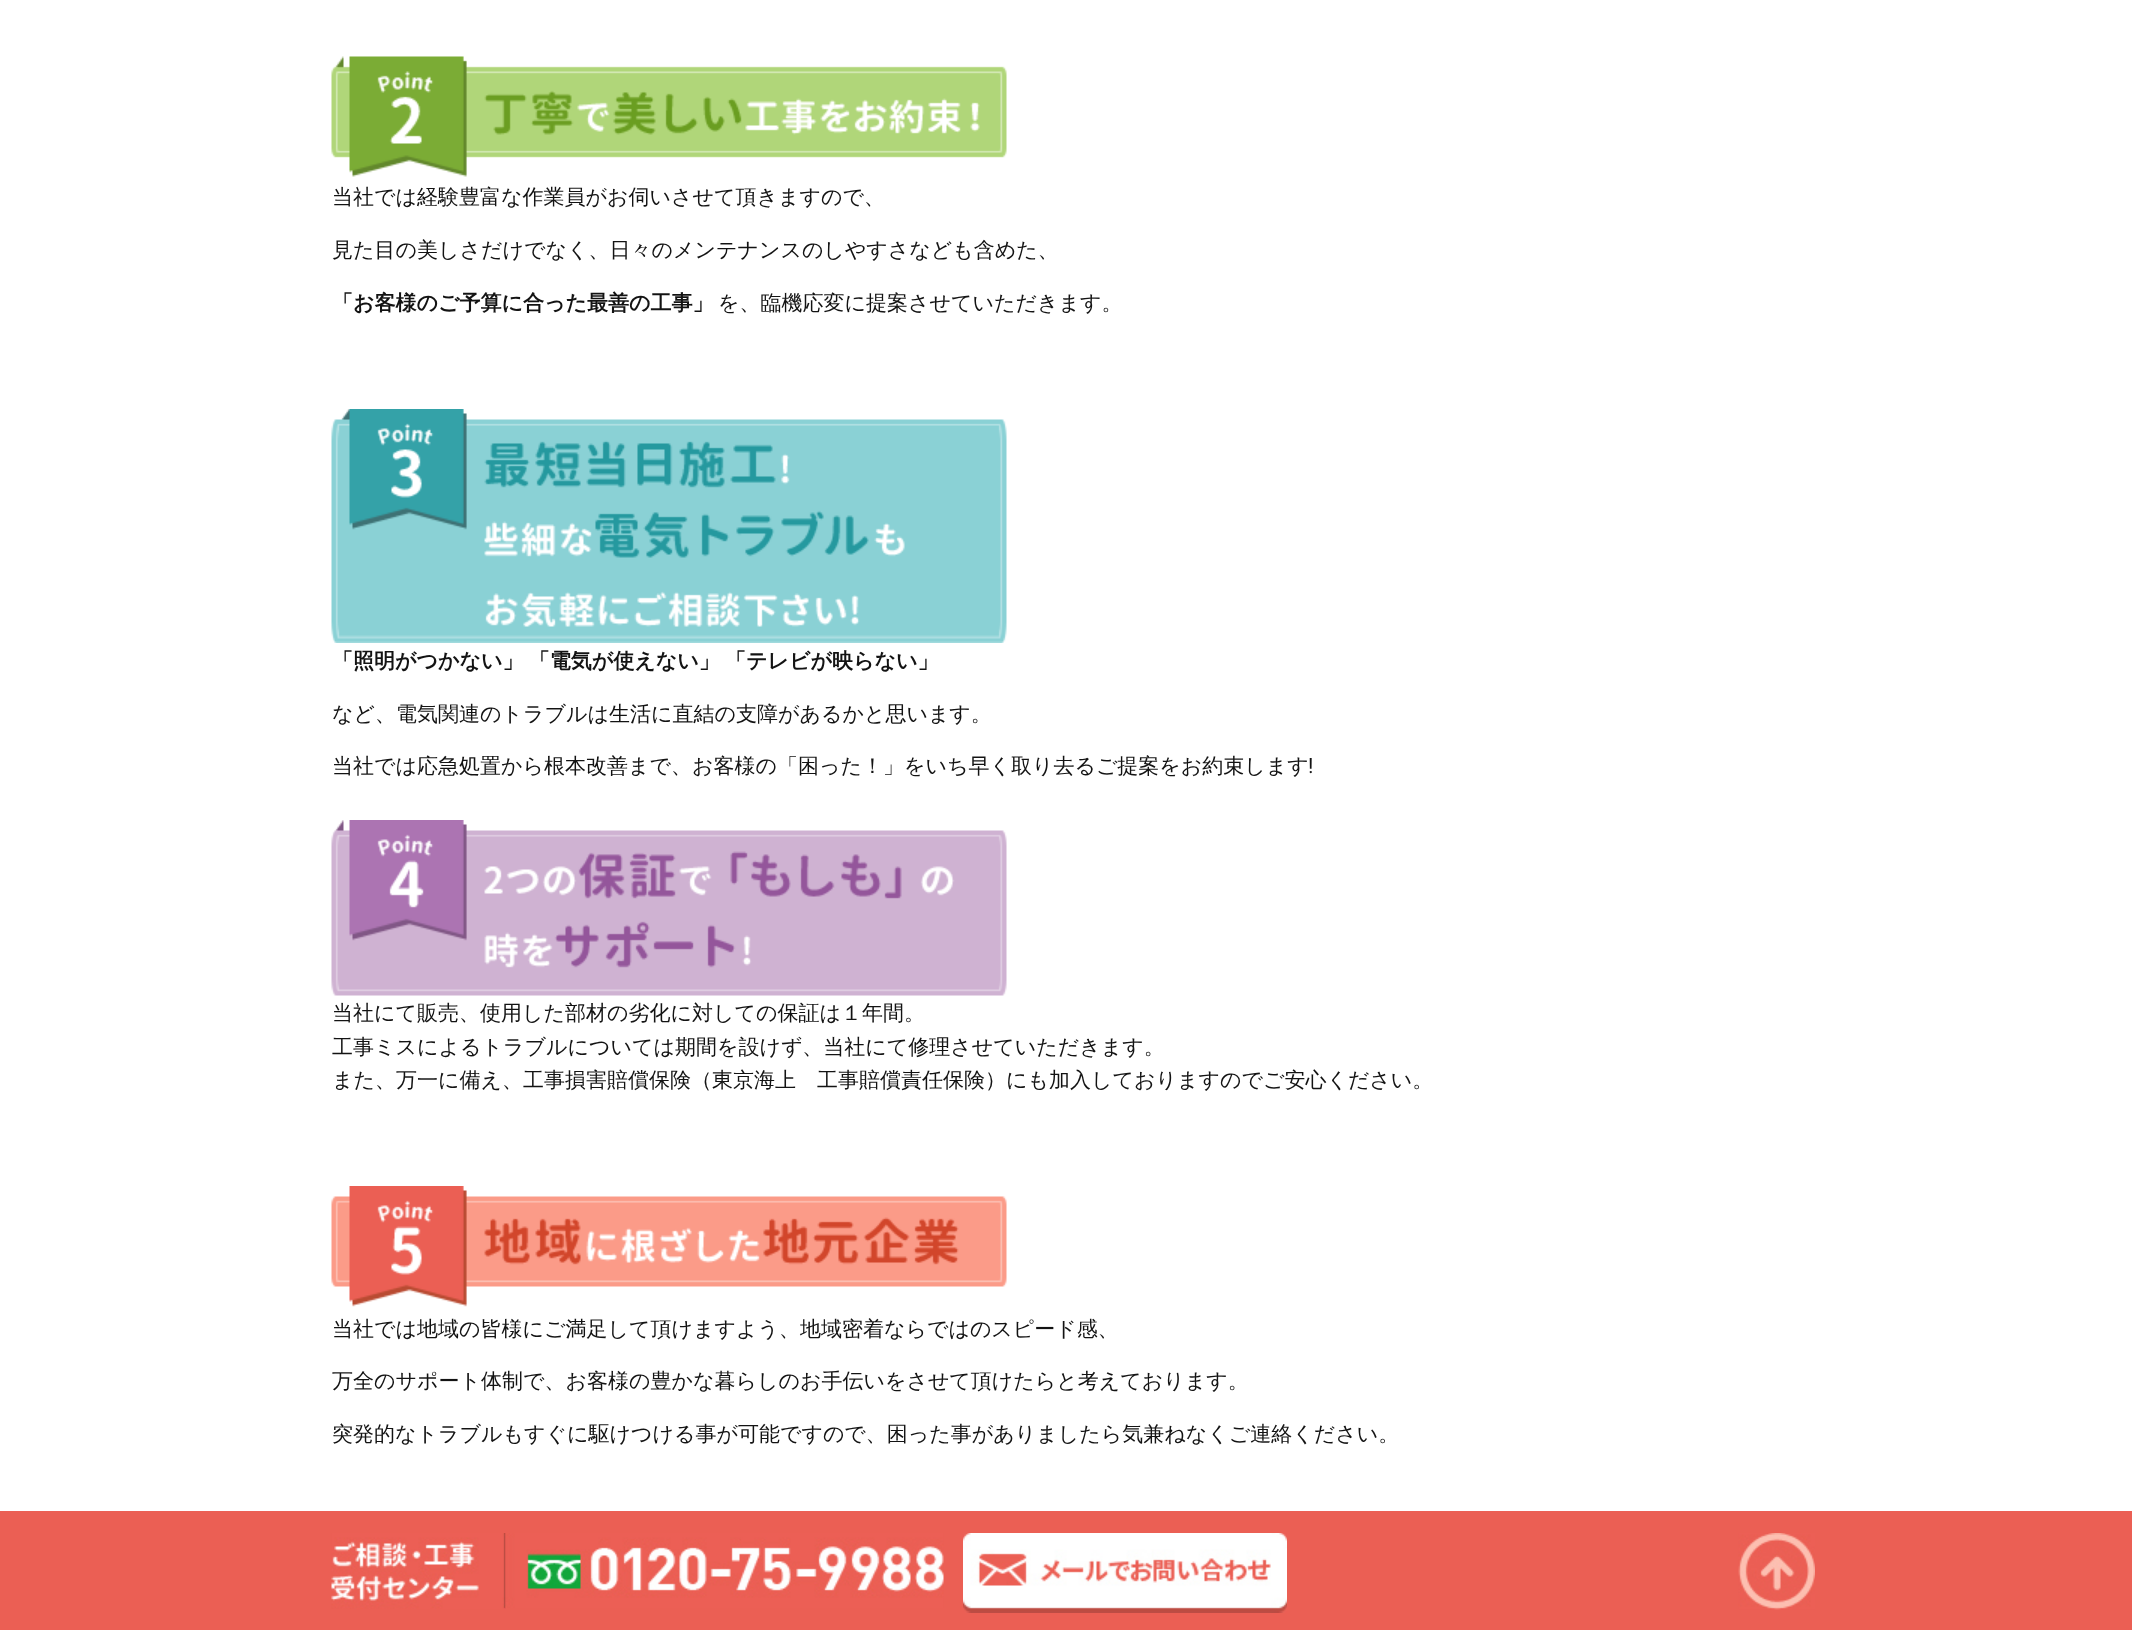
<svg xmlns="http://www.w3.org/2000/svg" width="2132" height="1630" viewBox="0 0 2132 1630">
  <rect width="100%" height="100%" fill="rgb(255,255,255)"/>
  <image x="331" y="56" width="676" height="121" href="pic1.png"/>
  <g font-family="WenQuanYi Zen Hei" font-size="21" font-weight="500" fill="rgb(19,19,19)">
    <text x="332" y="204">当社では経験豊富な作業員がお伺いさせて頂きますので、</text>
    <text x="332" y="257">見た目の美しさだけでなく、日々のメンテナンスのしやすさなども含めた、</text>
  </g>
  <text x="332" y="310" font-family="WenQuanYi Zen Hei" font-size="21" font-weight="bold" fill="rgb(19,19,19)">「お客様のご予算に合った最善の工事」</text>
  <text x="718" y="310" font-family="WenQuanYi Zen Hei" font-size="21" font-weight="500" fill="rgb(19,19,19)">を、臨機応変に提案させていただきます。</text>
  <image x="331" y="409" width="676" height="234" href="pic2.png"/>
  <text x="332" y="668" word-spacing="-1" font-family="WenQuanYi Zen Hei" font-size="21" font-weight="bold" fill="rgb(19,19,19)">「照明がつかない」 「電気が使えない」 「テレビが映らない」</text>
  <g font-family="WenQuanYi Zen Hei" font-size="21" font-weight="500" fill="rgb(19,19,19)">
    <text x="332" y="721">など、電気関連のトラブルは生活に直結の支障があるかと思います。</text>
    <text x="332" y="773">当社では応急処置から根本改善まで、お客様の「困った！」をいち早く取り去るご提案をお約束します</text>
  </g>
  <text x="1308" y="773" font-family="Roboto" font-size="21" fill="rgb(19,19,19)">!</text>
  <image x="331" y="820" width="676" height="176" href="pic3.png"/>
  <g font-family="WenQuanYi Zen Hei" font-size="21" font-weight="500" fill="rgb(19,19,19)">
    <text>
      <tspan x="332" y="1020">当社にて販売、使用した部材の劣化に対しての保証は１年間。</tspan>
      <tspan x="332" y="1054">工事ミスによるトラブルについては期間を設けず、当社にて修理させていただきます。</tspan>
      <tspan x="332" y="1087">また、万一に備え、工事損害賠償保険（東京海上　工事賠償責任保険）にも加入しておりますのでご安心ください。</tspan>
    </text>
  </g>
  <image x="331" y="1186" width="676" height="121" href="pic4.png"/>
  <g font-family="WenQuanYi Zen Hei" font-size="21" font-weight="500" fill="rgb(19,19,19)">
    <text x="332" y="1336">当社では地域の皆様にご満足して頂けますよう、地域密着ならではのスピード感、</text>
    <text x="332" y="1388">万全のサポート体制で、お客様の豊かな暮らしのお手伝いをさせて頂けたらと考えております。</text>
    <text x="332" y="1441">突発的なトラブルもすぐに駆けつける事が可能ですので、困った事がありましたら気兼ねなくご連絡ください。</text>
  </g>
  <rect x="0" y="1511" width="2132" height="119" fill="rgb(235,95,84)"/>
  <image x="331" y="1533" width="175" height="76" href="pic5.png"/>
  <image x="505" y="1533" width="439" height="75" href="pic6.png"/>
  <image x="963" y="1533" width="324" height="80" href="pic7.png"/>
  <image x="1738" y="1533" width="77" height="77" href="pic8.png"/>
</svg>
